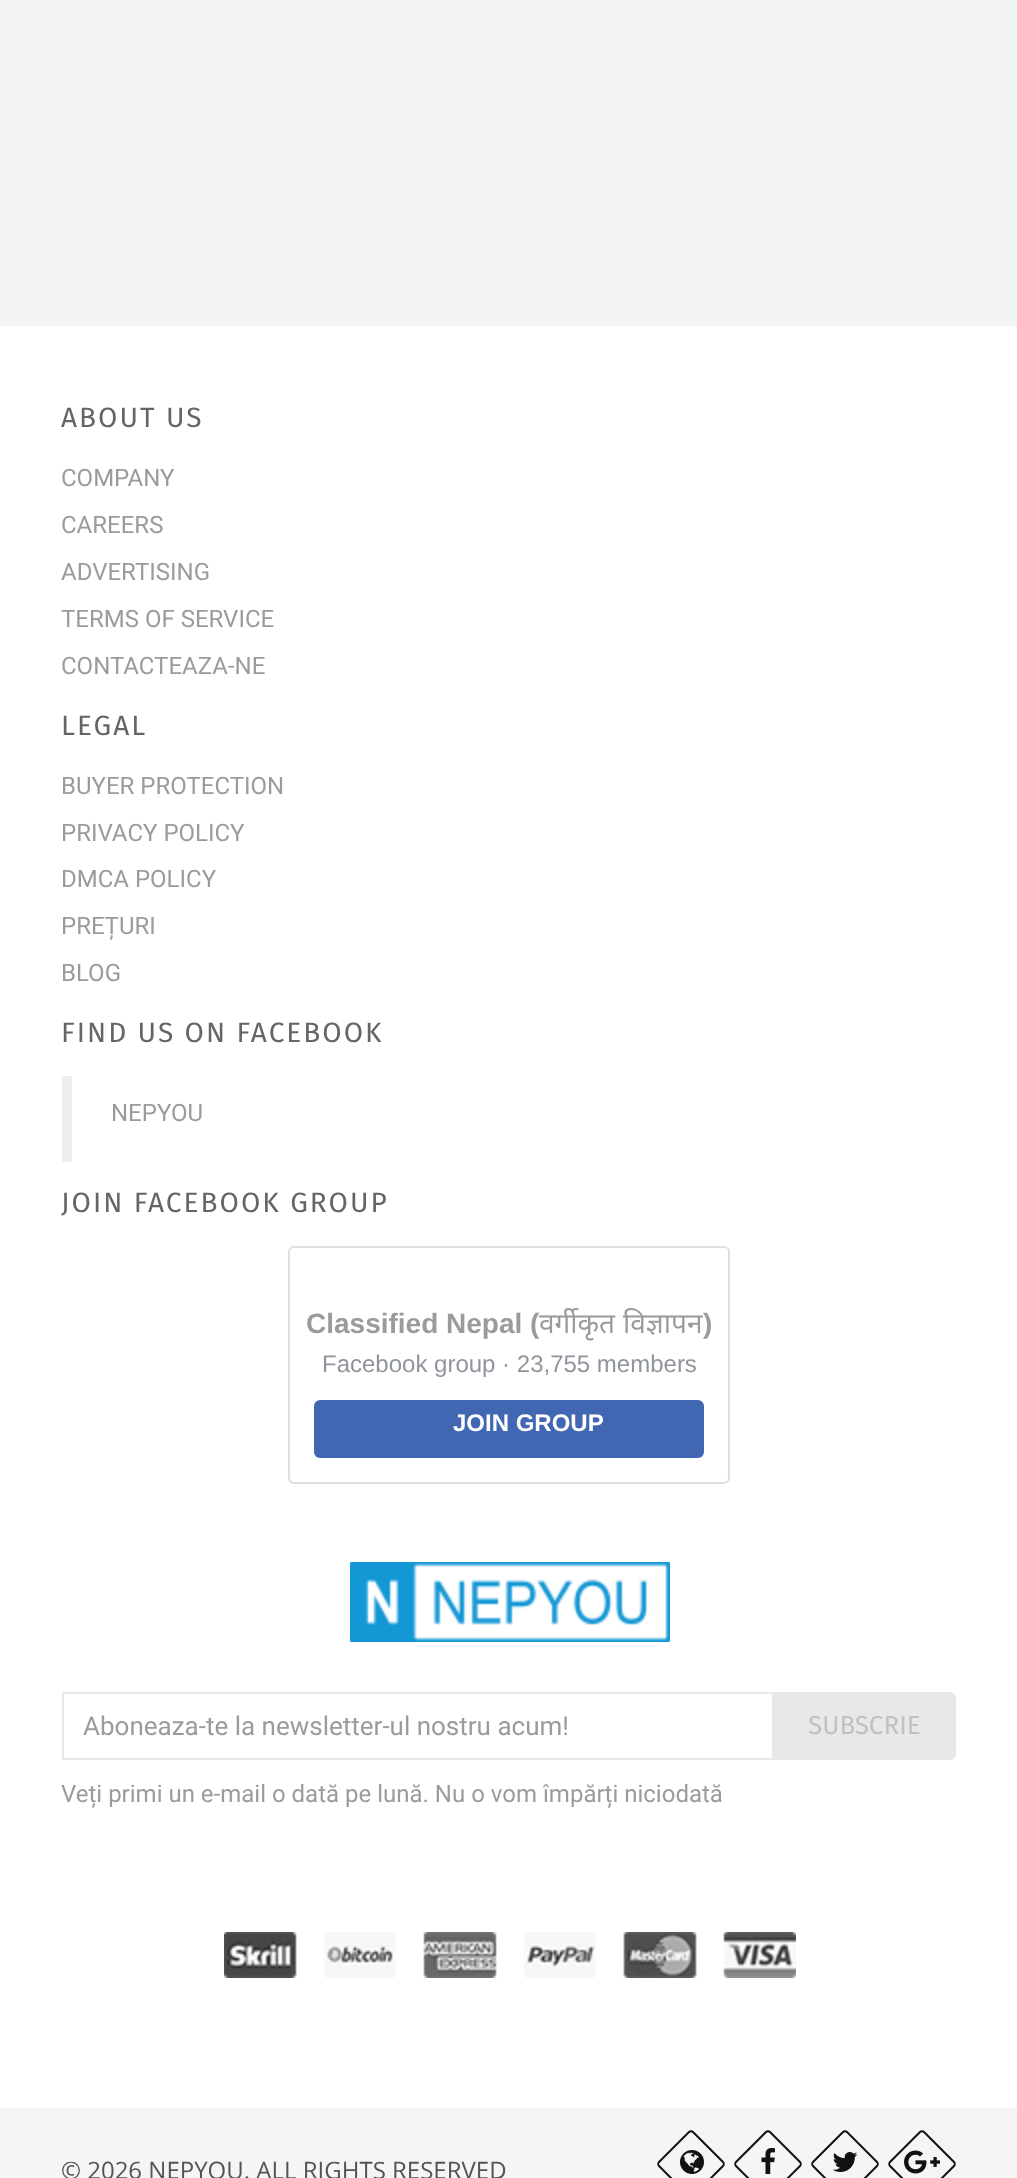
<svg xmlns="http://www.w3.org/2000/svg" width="1017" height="2178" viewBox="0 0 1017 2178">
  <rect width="100%" height="100%" fill="rgb(242,243,245)"/>
  <rect x="0" y="326" width="1017" height="1782" fill="rgb(255,255,255)"/>
  <text x="61" y="427" font-family="Fira Sans" font-size="28" letter-spacing="2" fill="rgb(101,101,101)">ABOUT US</text>
  <g font-family="Roboto" font-size="24" fill="rgb(155,155,155)">
    <text>
      <tspan x="61" y="486">COMPANY</tspan>
      <tspan x="61" y="533">CAREERS</tspan>
      <tspan x="61" y="580">ADVERTISING</tspan>
      <tspan x="61" y="627">TERMS OF SERVICE</tspan>
      <tspan x="61" y="674">CONTACTEAZA-NE</tspan>
    </text>
  </g>
  <text x="61" y="735" font-family="Fira Sans" font-size="28" letter-spacing="2" fill="rgb(101,101,101)">LEGAL</text>
  <g font-family="Roboto" font-size="24" fill="rgb(155,155,155)">
    <text>
      <tspan x="61" y="794">BUYER PROTECTION</tspan>
      <tspan x="61" y="841">PRIVACY POLICY</tspan>
      <tspan x="61" y="887">DMCA POLICY</tspan>
      <tspan x="61" y="934">PREȚURI</tspan>
      <tspan x="61" y="981">BLOG</tspan>
    </text>
  </g>
  <text x="61" y="1042" font-family="Fira Sans" font-size="28" letter-spacing="2" fill="rgb(101,101,101)">FIND US ON FACEBOOK</text>
  <rect x="62" y="1076" width="10" height="86" fill="rgb(238,238,238)"/>
  <text x="111" y="1121" font-family="Roboto" font-size="24" fill="rgb(155,155,155)">NEPYOU</text>
  <text x="61" y="1212" font-family="Fira Sans" font-size="28" letter-spacing="2" fill="rgb(101,101,101)">JOIN FACEBOOK GROUP</text>
  <rect x="289" y="1247" width="440" height="236" rx="5" fill="none" stroke="rgb(221,223,226)" stroke-width="2"/>
  <text x="306" y="1333" font-family="Liberation Sans" font-size="28" font-weight="bold" fill="rgb(155,155,155)">Classified Nepal (</text>
  <g font-family="Noto Sans" font-size="28" fill="rgb(155,155,155)">
    <text x="539" y="1333">वर्गीकृत</text>
    <text x="623" y="1333">विज्ञापन</text>
  </g>
  <text x="703" y="1333" font-family="Liberation Sans" font-size="28" font-weight="bold" fill="rgb(155,155,155)">)</text>
  <text x="322" y="1372" font-family="Liberation Sans" font-size="24" fill="rgb(144,148,156)">Facebook group · 23,755 members</text>
  <rect x="314" y="1400" width="390" height="58" rx="6" fill="rgb(66,103,178)"/>
  <text x="453" y="1431" font-family="Liberation Sans" font-size="24" font-weight="bold" fill="rgb(255,255,255)">JOIN GROUP</text>
  <image x="350" y="1562" width="320" height="80" href="pic1.png"/>
  <rect x="63" y="1693" width="710" height="66" rx="1" fill="none" stroke="rgb(232,232,232)" stroke-width="2"/>
  <text x="83" y="1735" font-family="Roboto" font-size="26" fill="rgb(155,155,155)">Aboneaza-te la newsletter-ul nostru acum!</text>
  <path d="M772 1692H950C953.5 1692 956 1694.5 956 1698V1754C956 1757.5 953.5 1760 950 1760H772Z" fill="rgb(232,232,232)"/>
  <text x="808" y="1734" font-family="Fira Sans" font-size="26" fill="rgb(193,193,193)">SUBSCRIE</text>
  <text x="61" y="1802" font-family="Roboto" font-size="24" fill="rgb(155,155,155)">Veți primi un e-mail o dată pe lună. Nu o vom împărți niciodată</text>
  <image x="224" y="1932" width="572" height="46" href="pic2.png"/>
  <rect x="0" y="2108" width="1017" height="70" fill="rgb(245,245,245)"/>
  <text x="61" y="2179" font-family="Open Sans" font-size="24" fill="rgb(84,84,84)">© 2026 NEPYOU. ALL RIGHTS RESERVED</text>
  <image x="680" y="2150" width="24" height="24" href="pic3.png"/>
  <path d="M693 2132L723 2162C724 2163 724 2165 723 2166L693 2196C692 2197 690 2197 689 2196L659 2166C658 2165 658 2163 659 2162L689 2132C690 2131 692 2131 693 2132Z" fill="none" stroke="rgb(17,17,17)" stroke-width="2"/>
  <image x="761" y="2148" width="14" height="26" href="pic4.png"/>
  <path d="M770 2132L800 2162C801 2163 801 2165 800 2166L770 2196C769 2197 767 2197 766 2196L736 2166C735 2165 735 2163 736 2162L766 2132C767 2131 769 2131 770 2132Z" fill="none" stroke="rgb(17,17,17)" stroke-width="2"/>
  <image x="832" y="2152" width="26" height="20" href="pic5.png"/>
  <path d="M847 2132L877 2162C878 2163 878 2165 877 2166L847 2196C846 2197 844 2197 843 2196L813 2166C812 2165 812 2163 813 2162L843 2132C844 2131 846 2131 847 2132Z" fill="none" stroke="rgb(17,17,17)" stroke-width="2"/>
  <image x="904" y="2150" width="36" height="24" href="pic6.png"/>
  <path d="M924 2132L954 2162C955 2163 955 2165 954 2166L924 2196C923 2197 921 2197 920 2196L890 2166C889 2165 889 2163 890 2162L920 2132C921 2131 923 2131 924 2132Z" fill="none" stroke="rgb(17,17,17)" stroke-width="2"/>
</svg>
